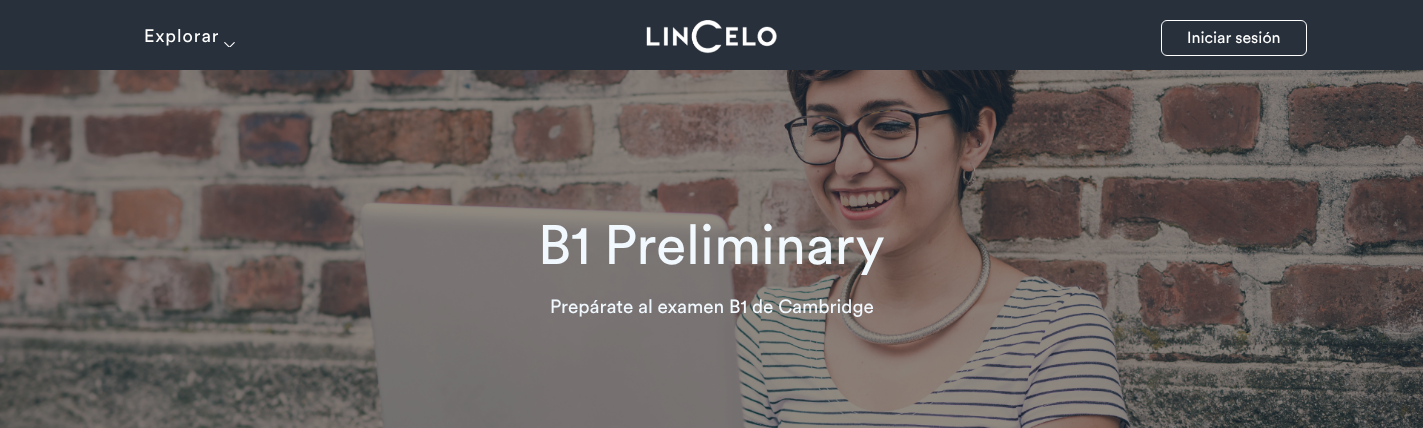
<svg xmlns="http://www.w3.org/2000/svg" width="1423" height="428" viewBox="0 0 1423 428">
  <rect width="100%" height="100%" fill="rgb(255,255,255)"/>
  <rect x="0" y="0" width="1423" height="70" fill="rgb(40,48,59)"/>
  <text x="144" y="42" font-family="'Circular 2'" font-size="18" letter-spacing="1" fill="rgb(255,255,255)">Explorar</text>
  <image x="224" y="42" width="11" height="5" href="pic1.png"/>
  <image x="646" y="20" width="131" height="34" href="pic2.png"/>
  <rect x="1161.5" y="20.5" width="145" height="35" rx="5.5" fill="none" stroke="rgb(255,255,255)"/>
  <text x="1187" y="43" font-family="'Circular 2'" font-size="16" fill="rgb(255,255,255)">Iniciar sesión</text>
  <image x="0" y="70" width="1423" height="358" href="pic3.png"/>
  <text x="538" y="264" font-family="Circular" font-size="55" fill="rgb(241,249,255)">B1 Preliminary</text>
  <text x="550" y="313" font-family="Circular" font-size="19" fill="rgb(241,249,255)">Prepárate al examen B1 de Cambridge</text>
</svg>
